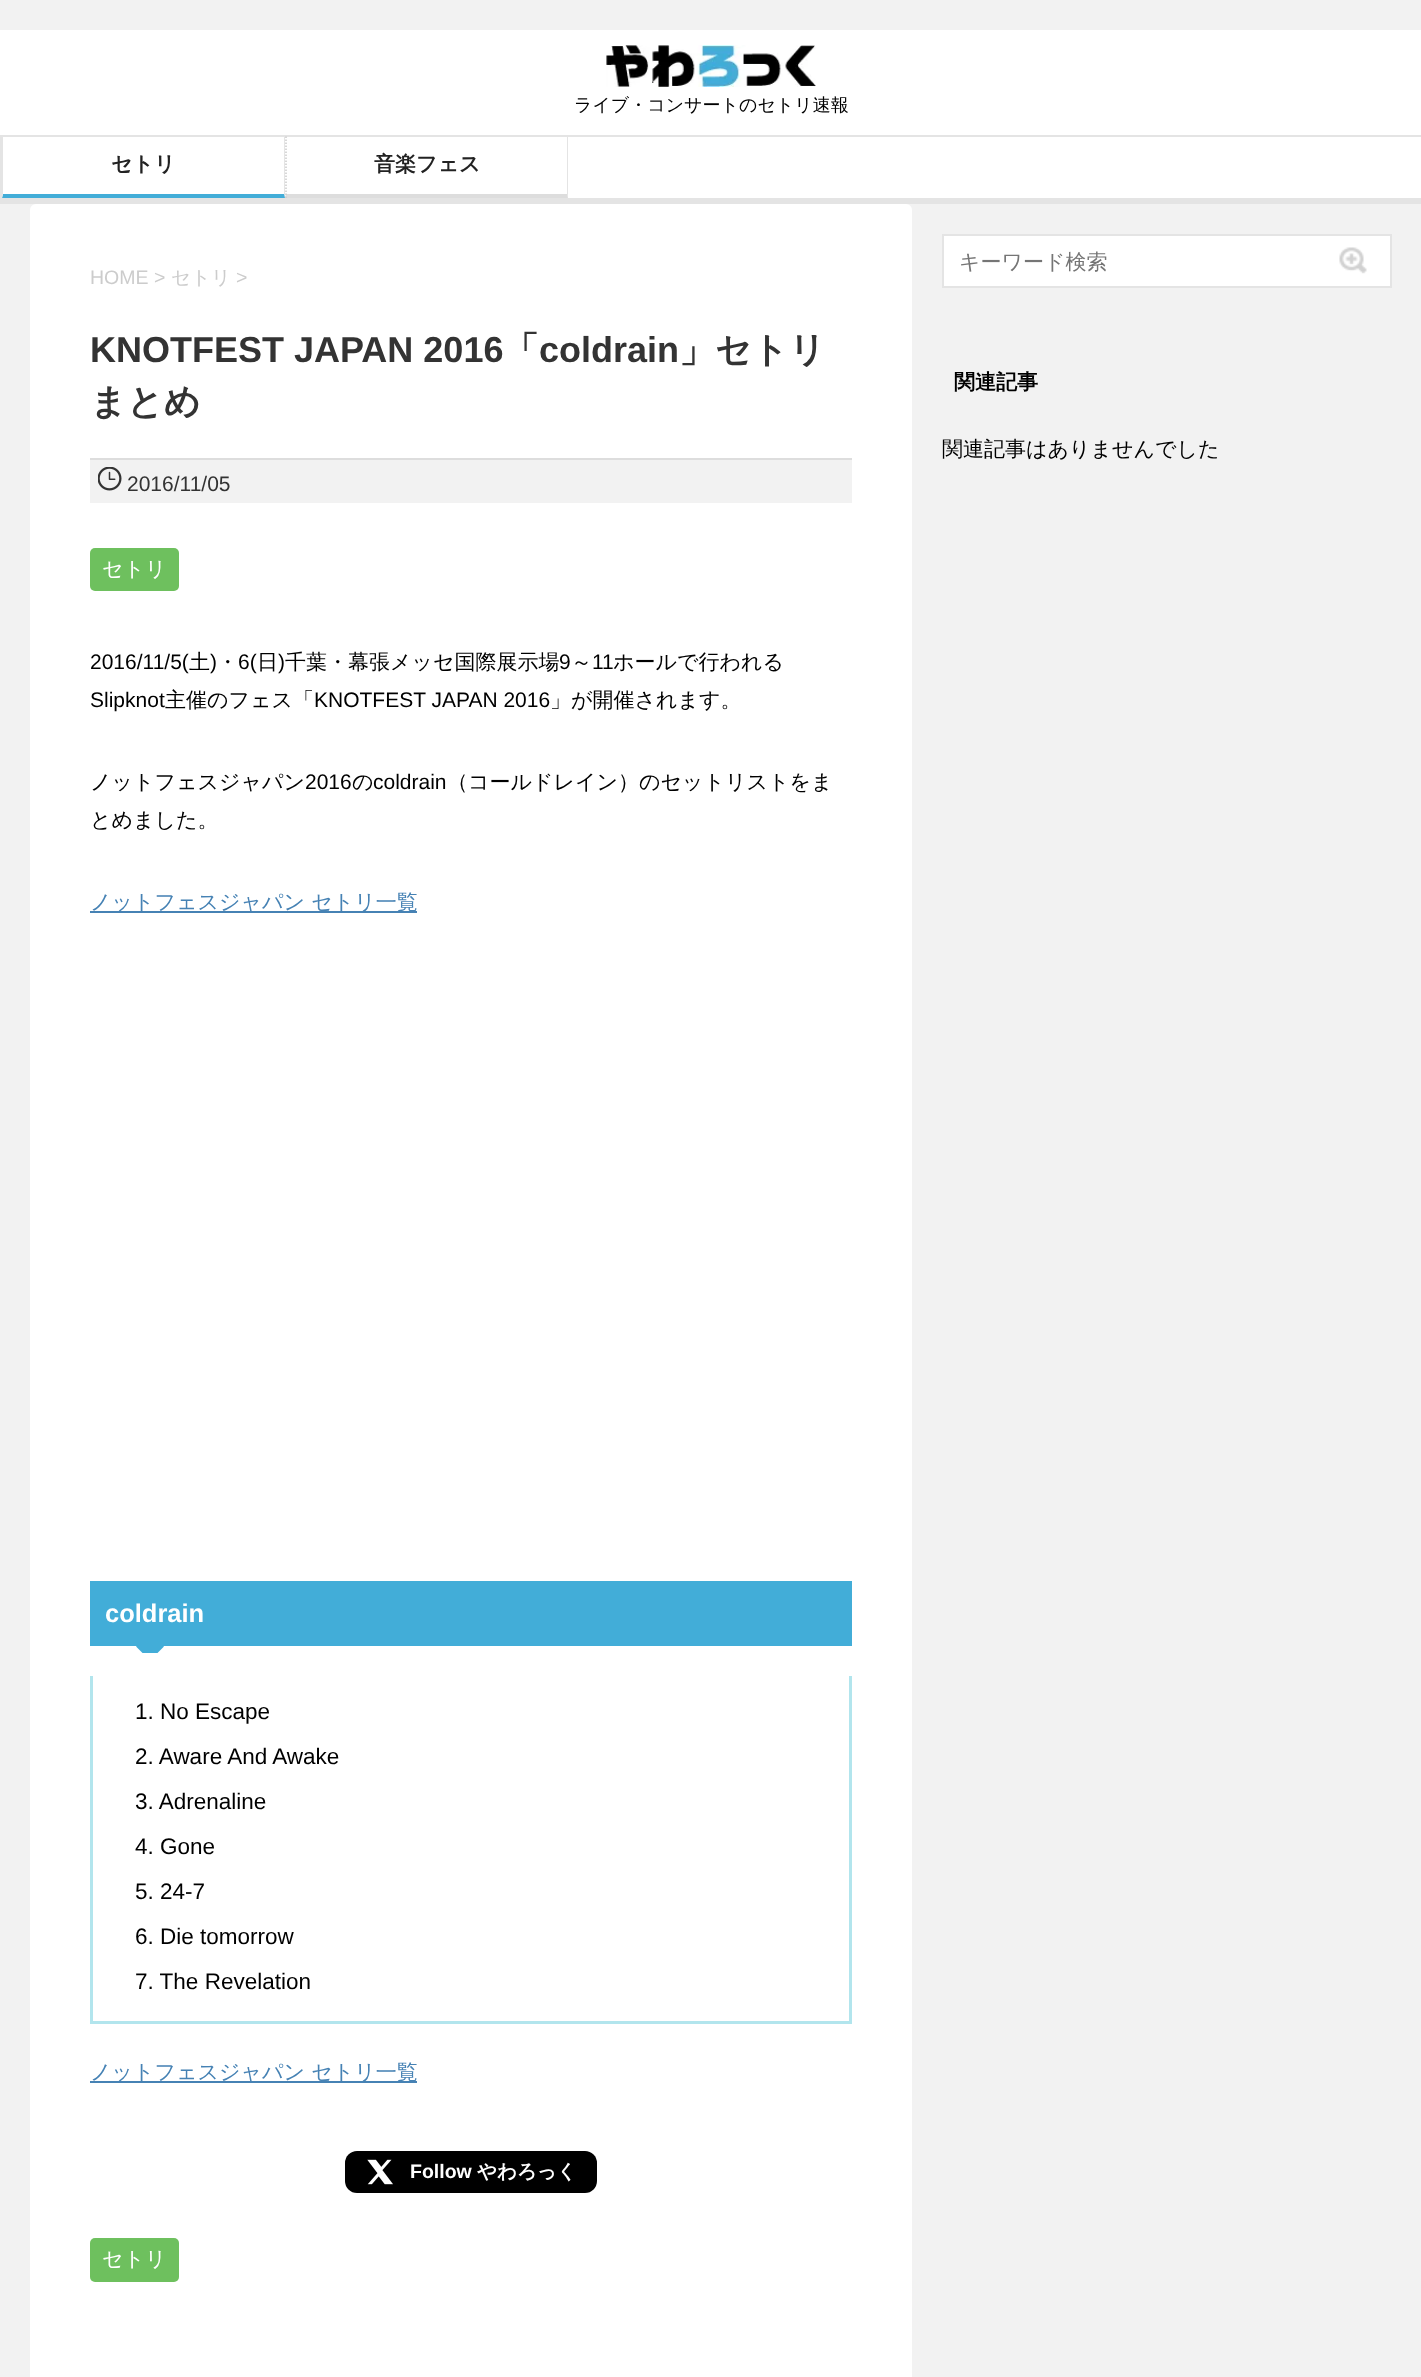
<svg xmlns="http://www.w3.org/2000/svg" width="1421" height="2377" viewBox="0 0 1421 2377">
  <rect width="100%" height="100%" fill="rgb(242,242,242)"/>
  <rect x="0" y="30" width="1421" height="168" fill="rgb(255,255,255)"/>
  <rect x="0" y="198" width="1421" height="6" fill="rgb(228,228,228)"/>
  <image x="606" y="45" width="210" height="42" href="pic1.png"/>
  <text x="574" y="111" font-family="WenQuanYi Zen Hei" font-size="18" font-weight="500" fill="rgb(0,0,0)">ライブ・コンサートのセトリ速報</text>
  <rect x="0" y="135" width="1421" height="2" fill="rgb(228,228,228)"/>
  <rect x="0" y="135" width="2" height="66" fill="rgb(228,228,228)"/>
  <path d="M285 136V198L284 194V136Z" fill="rgb(228,228,228)"/>
  <path d="M285 198H2L3 194H284Z" fill="rgb(66,173,216)"/>
  <path d="M2 198V136H3V194Z" fill="rgb(228,228,228)"/>
  <text x="111" y="171" font-family="WenQuanYi Zen Hei" font-size="21" font-weight="bold" fill="rgb(34,34,34)">セトリ</text>
  <path d="M568 136V198L567 194V136Z" fill="rgb(228,228,228)"/>
  <path d="M568 198H285L286 194H567Z" fill="rgb(221,221,221)"/>
  <path d="M286 136.5V198" fill="none" stroke="rgb(204,204,204)" stroke-width="1.5" stroke-dasharray="1.5 1.5"/>
  <text x="374" y="171" font-family="WenQuanYi Zen Hei" font-size="21" font-weight="bold" fill="rgb(34,34,34)">音楽フェス</text>
  <rect x="30" y="204" width="882" height="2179" rx="6" fill="rgb(255,255,255)"/>
  <text x="90" y="284" font-family="Liberation Sans" font-size="19.5" fill="rgb(204,204,204)">HOME &gt;</text>
  <text x="171" y="284" font-family="WenQuanYi Zen Hei" font-size="19.5" font-weight="500" fill="rgb(204,204,204)">セトリ</text>
  <text x="236" y="284" font-family="Liberation Sans" font-size="19.5" fill="rgb(204,204,204)">&gt;</text>
  <text x="90" y="362" font-family="Liberation Sans" font-size="36" font-weight="bold" fill="rgb(51,51,51)">KNOTFEST JAPAN 2016</text>
  <text x="503" y="362" font-family="WenQuanYi Zen Hei" font-size="36" font-weight="bold" fill="rgb(51,51,51)">「</text>
  <text x="539" y="362" font-family="Liberation Sans" font-size="36" font-weight="bold" fill="rgb(51,51,51)">coldrain</text>
  <g font-family="WenQuanYi Zen Hei" font-size="36" font-weight="bold" fill="rgb(51,51,51)">
    <text x="679" y="362">」セトリ</text>
    <text x="90" y="414">まとめ</text>
  </g>
  <rect x="90" y="460" width="762" height="43" fill="rgb(242,242,242)"/>
  <rect x="90" y="458" width="762" height="2" fill="rgb(221,221,221)"/>
  <image x="98" y="467" width="24" height="24" href="pic2.png"/>
  <text x="127" y="491" font-family="Liberation Sans" font-size="21" fill="rgb(51,51,51)">2016/11/05</text>
  <rect x="90" y="548" width="89" height="43" rx="5" fill="rgb(110,192,94)"/>
  <text x="102" y="576" font-family="WenQuanYi Zen Hei" font-size="21" font-weight="500" fill="rgb(255,255,255)">セトリ</text>
  <text x="90" y="669" font-family="Liberation Sans" font-size="21" fill="rgb(0,0,0)">2016/11/5(</text>
  <text x="189" y="669" font-family="WenQuanYi Zen Hei" font-size="21" font-weight="500" fill="rgb(0,0,0)">土</text>
  <text x="210" y="669" font-family="Liberation Sans" font-size="21" fill="rgb(0,0,0)">)</text>
  <text x="217" y="669" font-family="WenQuanYi Zen Hei" font-size="21" font-weight="500" fill="rgb(0,0,0)">・</text>
  <text x="238" y="669" font-family="Liberation Sans" font-size="21" fill="rgb(0,0,0)">6(</text>
  <text x="257" y="669" font-family="WenQuanYi Zen Hei" font-size="21" font-weight="500" fill="rgb(0,0,0)">日</text>
  <text x="278" y="669" font-family="Liberation Sans" font-size="21" fill="rgb(0,0,0)">)</text>
  <text x="285" y="669" font-family="WenQuanYi Zen Hei" font-size="21" font-weight="500" fill="rgb(0,0,0)">千葉・幕張メッセ国際展示場</text>
  <text x="559" y="669" font-family="Liberation Sans" font-size="21" fill="rgb(0,0,0)">9</text>
  <text x="571" y="669" font-family="WenQuanYi Zen Hei" font-size="21" font-weight="500" fill="rgb(0,0,0)">～</text>
  <text x="592" y="669" font-family="Liberation Sans" font-size="21" fill="rgb(0,0,0)">11</text>
  <text x="613" y="669" font-family="WenQuanYi Zen Hei" font-size="21" font-weight="500" fill="rgb(0,0,0)">ホールで行われる</text>
  <text x="90" y="707" font-family="Liberation Sans" font-size="21" fill="rgb(0,0,0)">Slipknot</text>
  <text x="165" y="707" font-family="WenQuanYi Zen Hei" font-size="21" font-weight="500" fill="rgb(0,0,0)">主催のフェス「</text>
  <text x="314" y="707" font-family="Liberation Sans" font-size="21" fill="rgb(0,0,0)">KNOTFEST JAPAN 2016</text>
  <g font-family="WenQuanYi Zen Hei" font-size="21" font-weight="500" fill="rgb(0,0,0)">
    <text x="550" y="707">」が開催されます。</text>
    <text x="90" y="789">ノットフェスジャパン</text>
  </g>
  <text x="305" y="789" font-family="Liberation Sans" font-size="21" fill="rgb(0,0,0)">2016</text>
  <text x="352" y="789" font-family="WenQuanYi Zen Hei" font-size="21" font-weight="500" fill="rgb(0,0,0)">の</text>
  <text x="373" y="789" font-family="Liberation Sans" font-size="21" fill="rgb(0,0,0)">coldrain</text>
  <g font-family="WenQuanYi Zen Hei" font-size="21" font-weight="500" fill="rgb(0,0,0)">
    <text x="447" y="789">（コールドレイン）のセットリストをま</text>
    <text x="90" y="827">とめました。</text>
  </g>
  <rect x="90" y="911" width="327" height="2" fill="rgb(70,130,180)"/>
  <text x="90" y="909" font-family="WenQuanYi Zen Hei" font-size="21" font-weight="500" fill="rgb(70,130,180)">ノットフェスジャパン セトリ一覧</text>
  <rect x="90" y="1581" width="762" height="65" fill="rgb(66,173,216)"/>
  <text x="105" y="1622" font-family="Liberation Sans" font-size="25.5" font-weight="bold" fill="rgb(255,255,255)">coldrain</text>
  <path d="M138 1645.5C137 1645.5 136.5 1646 136 1646.5L142.5 1653H157.5L164 1646.5C163.5 1646 163 1645.5 162 1645.5Z" fill="rgb(66,173,216)"/>
  <rect x="849" y="1676" width="3" height="348" fill="rgb(178,229,237)"/>
  <rect x="90" y="2021" width="762" height="3" fill="rgb(178,229,237)"/>
  <rect x="90" y="1676" width="3" height="348" fill="rgb(178,229,237)"/>
  <g font-family="Liberation Sans" font-size="22.5" fill="rgb(0,0,0)">
    <text x="135" y="1719">1. No Escape</text>
    <text x="135" y="1764">2. Aware And Awake</text>
    <text x="135" y="1809">3. Adrenaline</text>
    <text x="135" y="1854">4. Gone</text>
    <text x="135" y="1899">5. 24-7</text>
    <text x="135" y="1944">6. Die tomorrow</text>
    <text x="135" y="1989">7. The Revelation</text>
  </g>
  <rect x="90" y="2081" width="327" height="2" fill="rgb(70,130,180)"/>
  <text x="90" y="2079" font-family="WenQuanYi Zen Hei" font-size="21" font-weight="500" fill="rgb(70,130,180)">ノットフェスジャパン セトリ一覧</text>
  <rect x="345" y="2151" width="252" height="42" rx="12" fill="rgb(0,0,0)"/>
  <image x="367" y="2159" width="26" height="26" href="pic3.png"/>
  <text x="410" y="2178" font-family="Liberation Sans" font-size="19.5" font-weight="bold" fill="rgb(255,255,255)">Follow</text>
  <text x="477" y="2178" font-family="WenQuanYi Zen Hei" font-size="19.5" font-weight="bold" fill="rgb(255,255,255)">やわろっく</text>
  <rect x="90" y="2238" width="89" height="44" rx="5" fill="rgb(110,192,94)"/>
  <text x="102" y="2266" font-family="WenQuanYi Zen Hei" font-size="21" font-weight="500" fill="rgb(255,255,255)">セトリ</text>
  <rect x="943" y="235" width="448" height="52" fill="rgb(255,255,255)" stroke="rgb(228,228,228)" stroke-width="2"/>
  <text x="959" y="269" font-family="WenQuanYi Zen Hei" font-size="21" font-weight="500" fill="rgb(117,117,117)">キーワード検索</text>
  <image x="1339" y="247" width="28" height="27" href="pic4.png"/>
  <text x="954" y="389" font-family="WenQuanYi Zen Hei" font-size="21" font-weight="bold" fill="rgb(0,0,0)">関連記事</text>
  <text x="942" y="456" font-family="WenQuanYi Zen Hei" font-size="21" font-weight="500" fill="rgb(0,0,0)">関連記事はありませんでした</text>
</svg>
